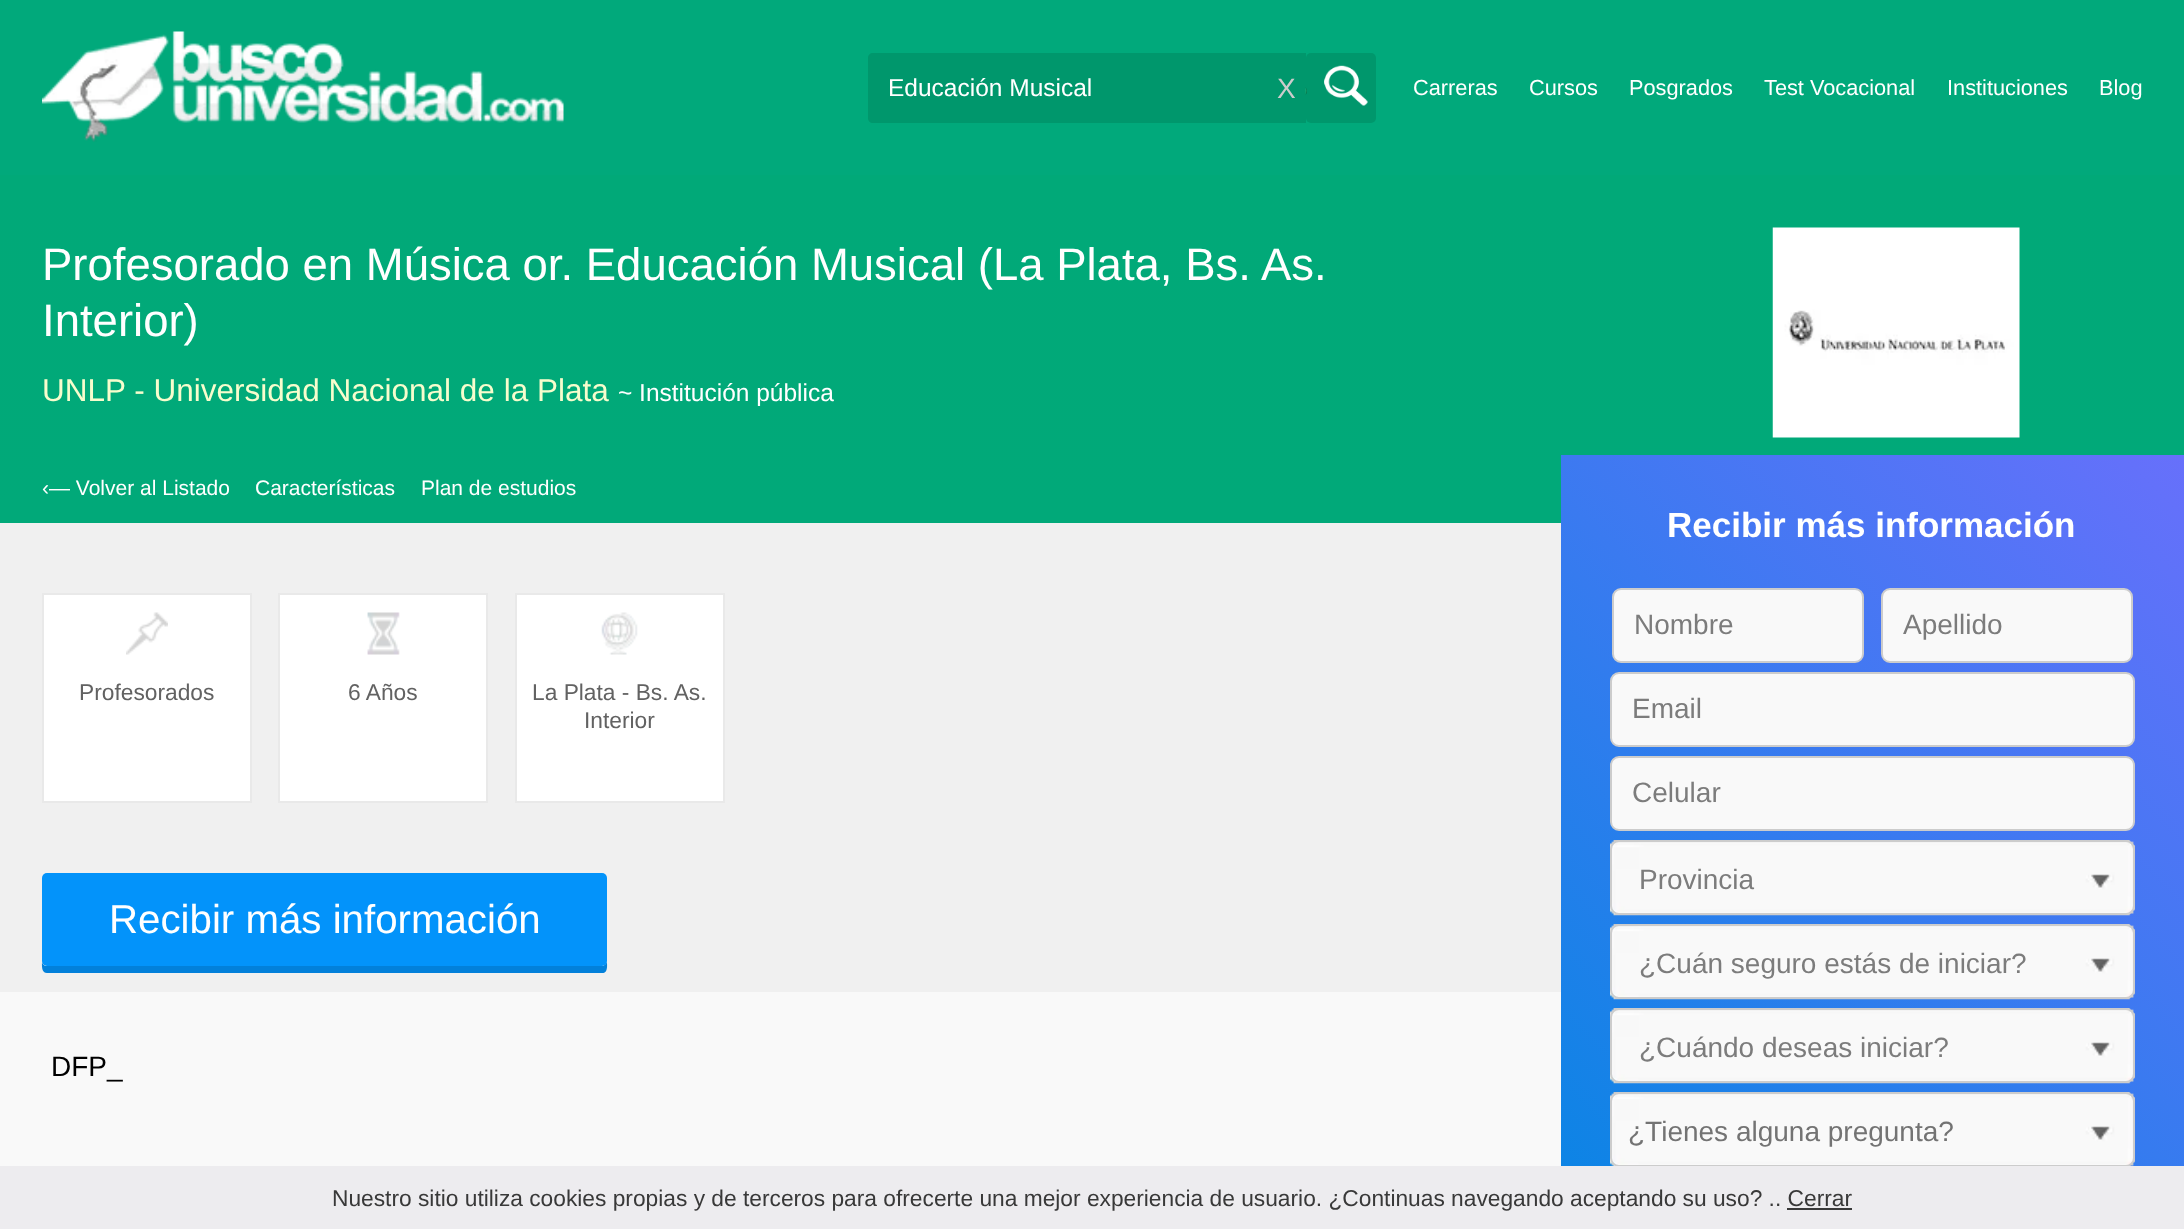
<svg xmlns="http://www.w3.org/2000/svg" width="2184" height="1229" viewBox="0 0 2184 1229">
  <defs>
    <linearGradient id="g1" gradientUnits="userSpaceOnUse" x1="1092" y1="175" x2="1092" y2="523"><stop offset="0" stop-color="rgb(1,169,120)"/><stop offset="1" stop-color="rgb(1,169,121)"/></linearGradient>
    <linearGradient id="g2" gradientUnits="userSpaceOnUse" x1="1491" y1="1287" x2="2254" y2="525"><stop offset="0" stop-color="rgb(0,135,226)"/><stop offset="1" stop-color="rgb(103,112,251)"/></linearGradient>
  </defs>
  <rect width="100%" height="100%" fill="rgb(249,249,249)"/>
  <rect x="0" y="0" width="2184" height="175" fill="rgb(1,169,123)"/>
  <image x="42" y="31" width="522" height="111" href="pic1.png"/>
  <path d="M873 53H1306V123H873C870 123 868 121 868 118V58C868 55 870 53 873 53Z" fill="rgb(0,151,108)"/>
  <text x="888" y="96" font-family="Liberation Sans" font-size="24.5" fill="rgb(255,255,255)">Educación Musical</text>
  <text x="1277" y="98" font-family="Liberation Sans" font-size="28" fill="rgb(204,204,204)">X</text>
  <rect x="1306" y="53" width="70" height="70" rx="5" fill="rgb(0,151,108)"/>
  <image x="1305" y="65" width="63" height="41" href="pic2.png"/>
  <g font-family="Liberation Sans" font-size="21.75" fill="rgb(255,255,255)">
    <text x="1413" y="95">Carreras</text>
    <text x="1529" y="95">Cursos</text>
    <text x="1629" y="95">Posgrados</text>
    <text x="1764" y="95">Test Vocacional</text>
    <text x="1947" y="95">Instituciones</text>
    <text x="2099" y="95">Blog</text>
  </g>
  <rect x="0" y="175" width="2184" height="348" fill="url(#g1)"/>
  <g font-family="Liberation Sans" font-size="45.5" fill="rgb(255,255,255)">
    <text>
      <tspan x="42" y="280">Profesorado en Música or. Educación Musical (La Plata, Bs. As.</tspan>
      <tspan x="42" y="336">Interior)</tspan>
    </text>
  </g>
  <image x="1772" y="227" width="248" height="211" href="pic3.png"/>
  <text x="42" y="401" font-family="Liberation Sans" font-size="31.5" fill="rgb(247,253,205)">UNLP - Universidad Nacional de la Plata</text>
  <text x="618" y="401" font-family="Liberation Sans" font-size="24.5" fill="rgb(255,255,255)">~ Institución pública</text>
  <g font-family="Liberation Sans" font-size="21" fill="rgb(255,255,255)">
    <text x="42" y="495">‹— Volver al Listado</text>
    <text x="255" y="495">Características</text>
    <text x="421" y="495">Plan de estudios</text>
  </g>
  <rect x="0" y="523" width="1561" height="469" fill="rgb(240,240,240)"/>
  <rect x="43" y="594" width="208" height="208" fill="rgb(255,255,255)" stroke="rgb(233,233,233)" stroke-width="2"/>
  <image x="126" y="612" width="42" height="43" href="pic4.png"/>
  <text x="79" y="700" font-family="Liberation Sans" font-size="22.75" fill="rgb(98,98,98)">Profesorados</text>
  <rect x="279" y="594" width="208" height="208" fill="rgb(255,255,255)" stroke="rgb(233,233,233)" stroke-width="2"/>
  <image x="367" y="612" width="33" height="43" href="pic5.png"/>
  <text x="348" y="700" font-family="Liberation Sans" font-size="22.75" fill="rgb(98,98,98)">6 Años</text>
  <rect x="516" y="594" width="208" height="208" fill="rgb(255,255,255)" stroke="rgb(233,233,233)" stroke-width="2"/>
  <image x="601" y="612" width="37" height="43" href="pic6.png"/>
  <g font-family="Liberation Sans" font-size="22.75" fill="rgb(98,98,98)">
    <text x="532" y="700">La Plata - Bs. As.</text>
    <text x="584" y="728">Interior</text>
  </g>
  <path d="M42 961C42 965 41 973 47 973H602C608 973 607 966 607 962C606 964 604 966 602 966H47C44 966 42 964 42 961Z" fill="rgb(2,128,218)"/>
  <rect x="42" y="873" width="565" height="93" rx="5" fill="rgb(3,147,250)"/>
  <text x="109" y="933" font-family="Liberation Sans" font-size="40.25" fill="rgb(255,255,255)">Recibir más información</text>
  <text x="51" y="1076" font-family="Liberation Sans" font-size="28" fill="rgb(0,0,0)">DFP_</text>
  <rect x="1561" y="455" width="623" height="711" fill="url(#g2)"/>
  <text x="1667" y="537" font-family="Liberation Sans" font-size="35" font-weight="bold" fill="rgb(255,255,255)">Recibir más información</text>
  <rect x="1613" y="589" width="250" height="73" rx="8" fill="rgb(249,249,249)" stroke="rgb(204,204,204)" stroke-width="2"/>
  <text x="1634" y="634" font-family="Liberation Sans" font-size="28" fill="rgb(124,124,124)">Nombre</text>
  <rect x="1882" y="589" width="250" height="73" rx="8" fill="rgb(249,249,249)" stroke="rgb(204,204,204)" stroke-width="2"/>
  <text x="1903" y="634" font-family="Liberation Sans" font-size="28" fill="rgb(124,124,124)">Apellido</text>
  <rect x="1611" y="673" width="523" height="73" rx="8" fill="rgb(249,249,249)" stroke="rgb(204,204,204)" stroke-width="2"/>
  <text x="1632" y="718" font-family="Liberation Sans" font-size="28" fill="rgb(124,124,124)">Email</text>
  <rect x="1611" y="757" width="523" height="73" rx="8" fill="rgb(249,249,249)" stroke="rgb(204,204,204)" stroke-width="2"/>
  <text x="1632" y="802" font-family="Liberation Sans" font-size="28" fill="rgb(124,124,124)">Celular</text>
  <image x="1610" y="840" width="525" height="76" href="pic7.png"/>
  <rect x="1611" y="841" width="523" height="73" rx="8" fill="none" stroke="rgb(204,204,204)" stroke-width="2"/>
  <text x="1639" y="889" font-family="Liberation Sans" font-size="28" fill="rgb(124,124,124)">Provincia</text>
  <image x="1610" y="924" width="525" height="76" href="pic8.png"/>
  <rect x="1611" y="925" width="523" height="73" rx="8" fill="none" stroke="rgb(204,204,204)" stroke-width="2"/>
  <text x="1639" y="973" font-family="Liberation Sans" font-size="28" fill="rgb(124,124,124)">¿Cuán seguro estás de iniciar?</text>
  <image x="1610" y="1008" width="525" height="76" href="pic9.png"/>
  <rect x="1611" y="1009" width="523" height="73" rx="8" fill="none" stroke="rgb(204,204,204)" stroke-width="2"/>
  <text x="1639" y="1057" font-family="Liberation Sans" font-size="28" fill="rgb(124,124,124)">¿Cuándo deseas iniciar?</text>
  <image x="1610" y="1092" width="525" height="74" href="pic10.png"/>
  <rect x="1611" y="1093" width="523" height="73" rx="8" fill="none" stroke="rgb(204,204,204)" stroke-width="2"/>
  <text x="1628" y="1141" font-family="Liberation Sans" font-size="28" fill="rgb(115,115,115)">¿Tienes alguna pregunta?</text>
  <rect x="0" y="1166" width="2184" height="63" fill="rgb(237,236,239)"/>
  <text x="332" y="1206" font-family="Liberation Sans" font-size="22.75" fill="rgb(57,57,57)">Nuestro sitio utiliza cookies propias y de terceros para ofrecerte una mejor experiencia de usuario. ¿Continuas navegando aceptando su uso? .. Cerrar</text>
  <rect x="1787" y="1208" width="65" height="2" fill="rgb(57,57,57)"/>
</svg>
